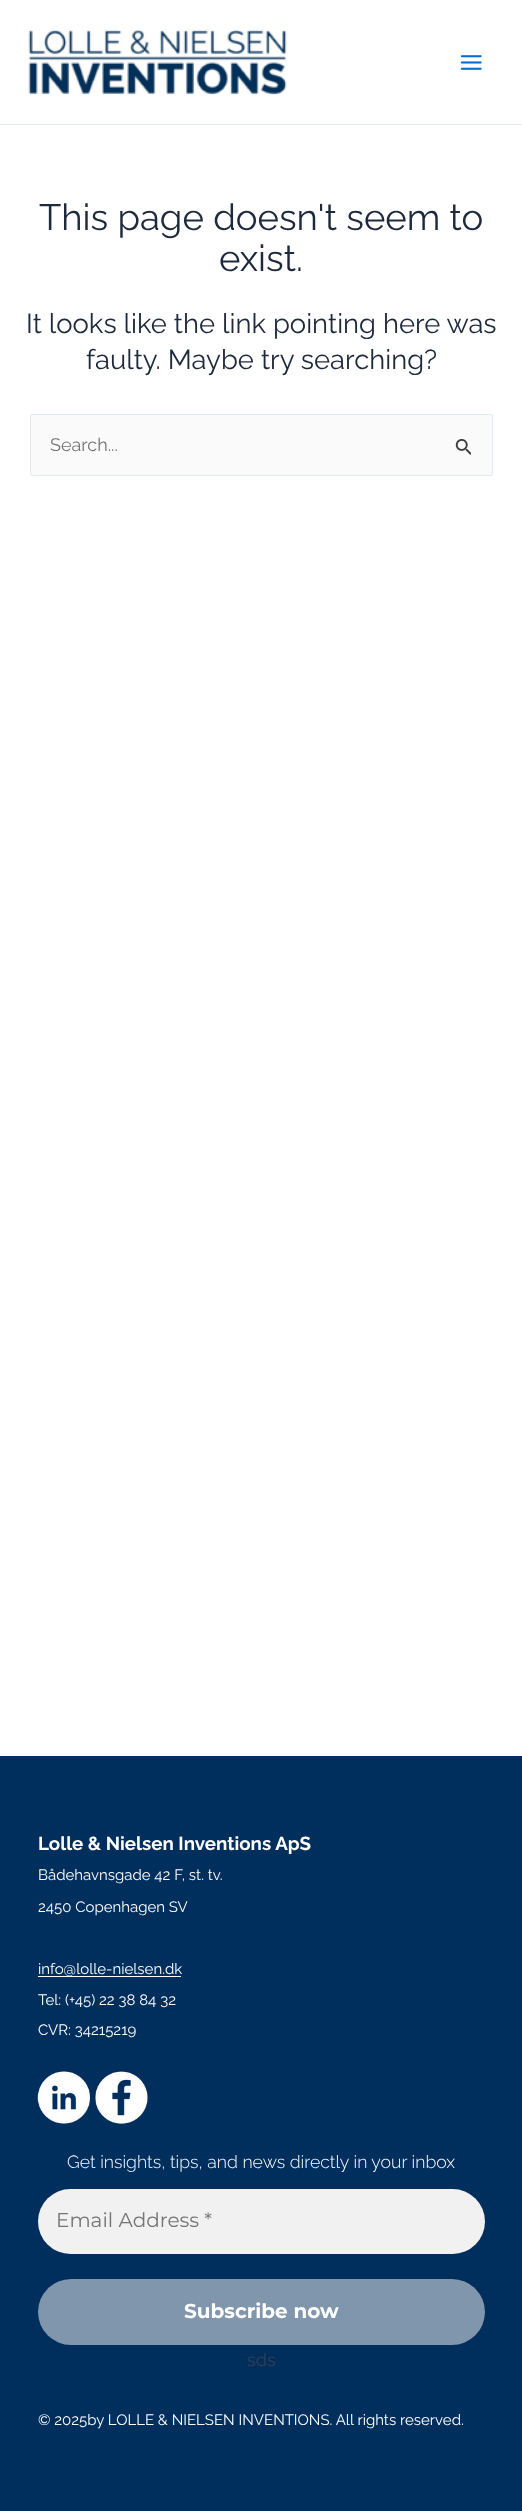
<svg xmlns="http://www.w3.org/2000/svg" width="522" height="2511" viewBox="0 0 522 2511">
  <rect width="100%" height="100%" fill="rgb(255,255,255)"/>
  <rect x="0" y="124" width="522" height="1" fill="rgb(226,232,240)"/>
  <image x="28" y="29" width="259" height="66" href="pic1.png"/>
  <image x="460" y="55" width="22" height="15" href="pic2.png"/>
  <g font-family="Raleway" font-size="36.5" fill="rgb(30,41,59)">
    <text x="39" y="230">This page doesn't seem to</text>
    <text x="219" y="271">exist.</text>
  </g>
  <g font-family="Raleway" font-size="27.4" fill="rgb(30,41,59)">
    <text x="26" y="333">It looks like the link pointing here was</text>
    <text x="86" y="369">faulty. Maybe try searching?</text>
  </g>
  <rect x="30.5" y="414.5" width="462" height="61" rx="2" fill="rgb(250,250,250)" stroke="rgb(226,232,240)"/>
  <text x="50" y="451" font-family="Raleway" font-size="18" fill="rgb(117,117,117)">Search...</text>
  <image x="455" y="439" width="16" height="16" href="pic3.png"/>
  <rect x="0" y="1756" width="522" height="755" fill="rgb(0,46,93)"/>
  <text x="38" y="1850" font-family="Raleway" font-size="18.75" font-weight="bold" fill="rgb(255,255,255)">Lolle &amp; Nielsen Inventions ApS</text>
  <g font-family="Raleway" font-size="15" fill="rgb(255,255,255)">
    <text x="38" y="1880">Bådehavnsgade 42 F, st. tv.</text>
    <text x="38" y="1912">2450 Copenhagen SV</text>
  </g>
  <rect x="38" y="1976" width="143" height="1" fill="rgb(255,255,255)"/>
  <g font-family="Raleway" font-size="15" fill="rgb(255,255,255)">
    <text x="38" y="1974">info@lolle-nielsen.dk</text>
    <text x="38" y="2005">Tel: (+45) 22 38 84 32</text>
    <text x="38" y="2035">CVR: 34215219</text>
  </g>
  <image x="37" y="2071" width="53" height="53" href="pic4.png"/>
  <image x="95" y="2071" width="53" height="53" href="pic5.png"/>
  <text x="67" y="2168" font-family="Raleway" font-size="17.7" font-weight="300" fill="rgb(255,255,255)">Get insights, tips, and news directly in your inbox</text>
  <rect x="38" y="2189" width="447" height="65" rx="32.5" fill="rgb(241,241,241)"/>
  <text x="56" y="2227" font-family="Montserrat" font-size="20" fill="rgb(117,117,117)">Email Address *</text>
  <rect x="38" y="2279" width="447" height="66" rx="33" fill="rgb(127,150,173)"/>
  <text x="184" y="2318" font-family="Montserrat" font-size="20" font-weight="bold" fill="rgb(255,255,255)">Subscribe now</text>
  <text x="247" y="2366" font-family="Raleway" font-size="18" fill="rgb(51,65,85)">sds</text>
  <text x="38" y="2425" font-family="Raleway" font-size="15" fill="rgb(255,255,255)">© 2025by LOLLE &amp; NIELSEN INVENTIONS. All rights reserved.</text>
</svg>
